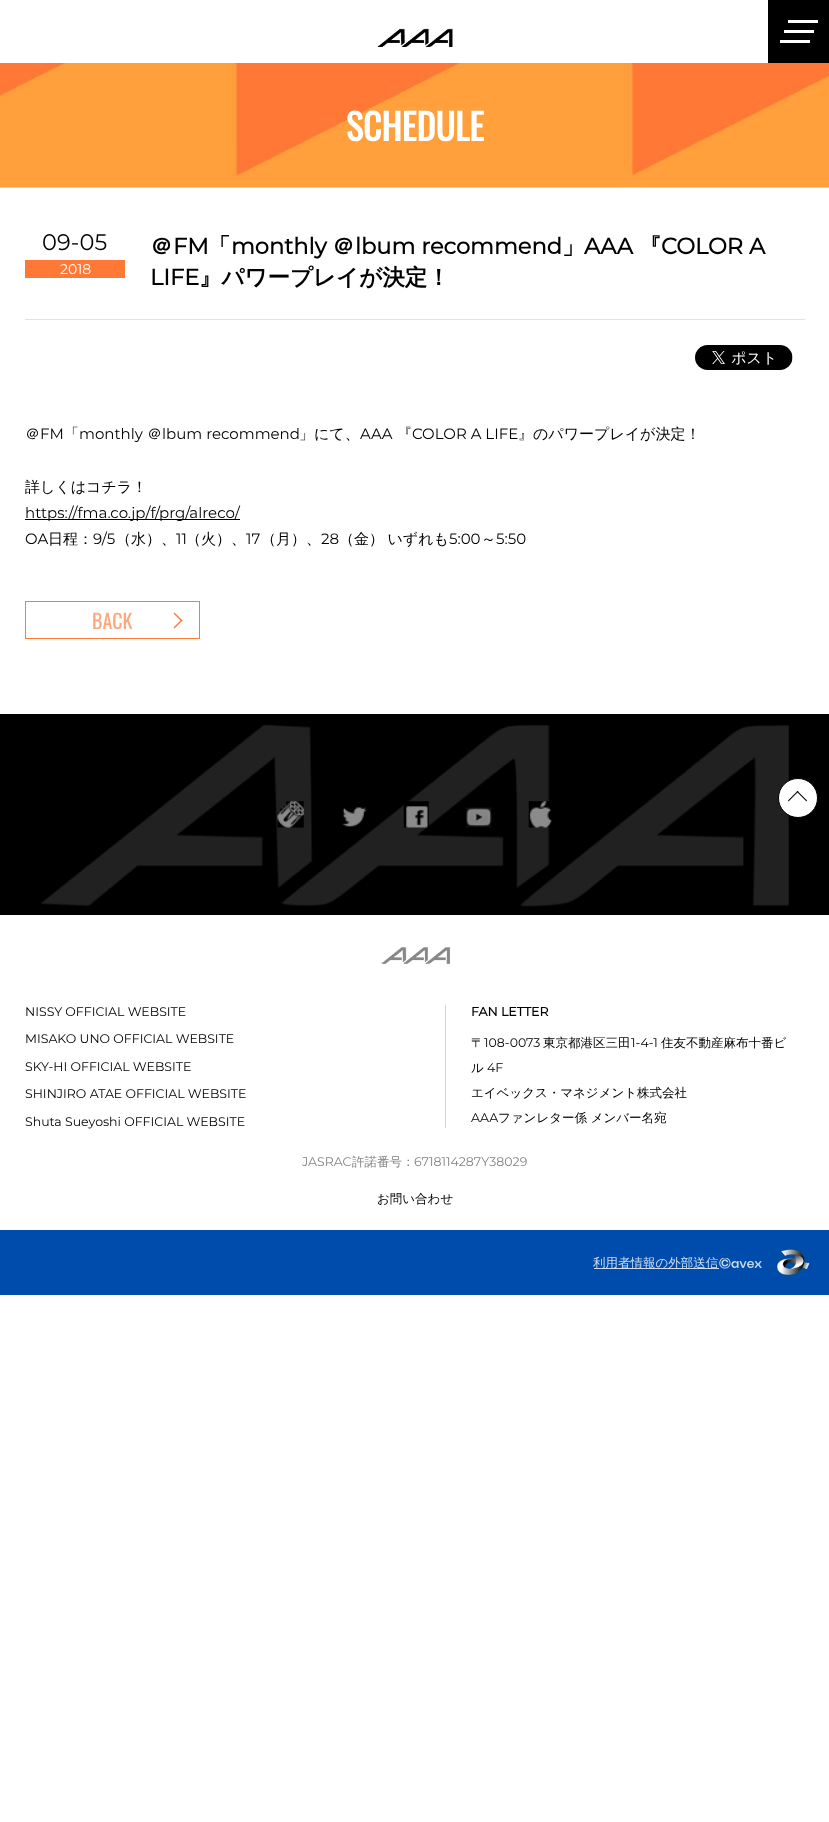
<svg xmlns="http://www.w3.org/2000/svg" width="829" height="1822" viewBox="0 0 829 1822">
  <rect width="100%" height="100%" fill="rgb(255,255,255)"/>
  <image x="377" y="28" width="76" height="19" href="pic1.png"/>
  <rect x="768" y="0" width="61" height="63" fill="rgb(0,0,0)"/>
  <rect x="788" y="20" width="30" height="3" fill="rgb(255,255,255)"/>
  <rect x="784" y="30" width="30" height="3" fill="rgb(255,255,255)"/>
  <rect x="780" y="40" width="30" height="3" fill="rgb(255,255,255)"/>
  <image x="0" y="63" width="829" height="125" href="pic2.png"/>
  <text x="346" y="141" font-family="Oswald" font-size="36" font-weight="bold" fill="rgb(255,255,255)">SCHEDULE</text>
  <text x="42" y="250" font-family="Montserrat" font-size="22.5" font-weight="100" fill="rgb(0,0,0)">09-05</text>
  <rect x="25" y="260" width="100" height="18" fill="rgb(255,120,53)"/>
  <text x="60" y="274" font-family="Montserrat" font-size="14" font-weight="100" fill="rgb(255,255,255)">2018</text>
  <rect x="25" y="319" width="780" height="1" fill="rgb(225,225,225)"/>
  <text x="150" y="254" font-family="WenQuanYi Zen Hei" font-size="22.5" font-weight="bold" fill="rgb(0,0,0)">＠</text>
  <text x="173" y="254" font-family="Montserrat" font-size="22.5" font-weight="bold" fill="rgb(0,0,0)">FM</text>
  <text x="208" y="254" font-family="WenQuanYi Zen Hei" font-size="22.5" font-weight="bold" fill="rgb(0,0,0)">「</text>
  <text x="231" y="254" font-family="Montserrat" font-size="22.5" font-weight="bold" fill="rgb(0,0,0)">monthly</text>
  <text x="332" y="254" font-family="WenQuanYi Zen Hei" font-size="22.5" font-weight="bold" fill="rgb(0,0,0)">＠</text>
  <text x="355" y="254" font-family="Montserrat" font-size="22.5" font-weight="bold" fill="rgb(0,0,0)">lbum recommend</text>
  <text x="562" y="254" font-family="WenQuanYi Zen Hei" font-size="22.5" font-weight="bold" fill="rgb(0,0,0)">」</text>
  <text x="584" y="254" font-family="Montserrat" font-size="22.5" font-weight="bold" fill="rgb(0,0,0)">AAA</text>
  <text x="639" y="254" font-family="WenQuanYi Zen Hei" font-size="22.5" font-weight="bold" fill="rgb(0,0,0)">『</text>
  <g font-family="Montserrat" font-size="22.5" font-weight="bold" fill="rgb(0,0,0)">
    <text x="661" y="254">COLOR A</text>
    <text x="150" y="285">LIFE</text>
  </g>
  <text x="199" y="285" font-family="WenQuanYi Zen Hei" font-size="22.5" font-weight="bold" fill="rgb(0,0,0)">』パワープレイが決定！</text>
  <image x="695" y="345" width="98" height="25" href="pic3.png"/>
  <text x="25" y="439" font-family="WenQuanYi Zen Hei" font-size="15" font-weight="500" fill="rgb(0,0,0)">＠</text>
  <text x="40" y="439" font-family="Montserrat" font-size="15" font-weight="100" fill="rgb(0,0,0)">FM</text>
  <text x="64" y="439" font-family="WenQuanYi Zen Hei" font-size="15" font-weight="500" fill="rgb(0,0,0)">「</text>
  <text x="79" y="439" font-family="Montserrat" font-size="15" font-weight="100" fill="rgb(0,0,0)">monthly</text>
  <text x="147" y="439" font-family="WenQuanYi Zen Hei" font-size="15" font-weight="500" fill="rgb(0,0,0)">＠</text>
  <text x="162" y="439" font-family="Montserrat" font-size="15" font-weight="100" fill="rgb(0,0,0)">lbum recommend</text>
  <text x="299" y="439" font-family="WenQuanYi Zen Hei" font-size="15" font-weight="500" fill="rgb(0,0,0)">」にて、</text>
  <text x="360" y="439" font-family="Montserrat" font-size="15" font-weight="100" fill="rgb(0,0,0)">AAA</text>
  <text x="397" y="439" font-family="WenQuanYi Zen Hei" font-size="15" font-weight="500" fill="rgb(0,0,0)">『</text>
  <text x="412" y="439" font-family="Montserrat" font-size="15" font-weight="100" fill="rgb(0,0,0)">COLOR A LIFE</text>
  <g font-family="WenQuanYi Zen Hei" font-size="15" font-weight="500" fill="rgb(0,0,0)">
    <text x="518" y="439">』のパワープレイが決定！</text>
    <text x="25" y="492">詳しくはコチラ！</text>
  </g>
  <rect x="25" y="519" width="215" height="1" fill="rgb(0,0,0)"/>
  <g font-family="Montserrat" font-size="15" font-weight="100" fill="rgb(0,0,0)">
    <text>
      <tspan x="25" y="518">https://fma.co.jp/f/prg/alreco/</tspan>
      <tspan x="25" y="544">OA</tspan>
    </text>
  </g>
  <text x="48" y="544" font-family="WenQuanYi Zen Hei" font-size="15" font-weight="500" fill="rgb(0,0,0)">日程：</text>
  <text x="93" y="544" font-family="Montserrat" font-size="15" font-weight="100" fill="rgb(0,0,0)">9/5</text>
  <text x="116" y="544" font-family="WenQuanYi Zen Hei" font-size="15" font-weight="500" fill="rgb(0,0,0)">（水）、</text>
  <text x="176" y="544" font-family="Montserrat" font-size="15" font-weight="100" fill="rgb(0,0,0)">11</text>
  <text x="186" y="544" font-family="WenQuanYi Zen Hei" font-size="15" font-weight="500" fill="rgb(0,0,0)">（火）、</text>
  <text x="246" y="544" font-family="Montserrat" font-size="15" font-weight="100" fill="rgb(0,0,0)">17</text>
  <text x="261" y="544" font-family="WenQuanYi Zen Hei" font-size="15" font-weight="500" fill="rgb(0,0,0)">（月）、</text>
  <text x="321" y="544" font-family="Montserrat" font-size="15" font-weight="100" fill="rgb(0,0,0)">28</text>
  <text x="339" y="544" word-spacing="-1" font-family="WenQuanYi Zen Hei" font-size="15" font-weight="500" fill="rgb(0,0,0)">（金） いずれも</text>
  <text x="449" y="544" font-family="Montserrat" font-size="15" font-weight="100" fill="rgb(0,0,0)">5:00</text>
  <text x="481" y="544" font-family="WenQuanYi Zen Hei" font-size="15" font-weight="500" fill="rgb(0,0,0)">～</text>
  <text x="496" y="544" font-family="Montserrat" font-size="15" font-weight="100" fill="rgb(0,0,0)">5:50</text>
  <rect x="25.5" y="601.5" width="174" height="37" fill="none" stroke="rgb(255,120,53)"/>
  <text x="92" y="629" font-family="Oswald" font-size="20" fill="rgb(255,166,122)">BACK</text>
  <path d="M174.5 612.5L182.5 620.5L181.5 621.5L173.5 613.5Z" fill="rgb(255,120,53)"/>
  <path d="M181.5 619.5L182.5 620.5L174.5 628.5L173.5 627.5Z" fill="rgb(255,120,53)"/>
  <rect x="0" y="714" width="829" height="201" fill="rgb(0,0,0)"/>
  <image x="41" y="725" width="748" height="182" href="pic4.png"/>
  <image x="277" y="801" width="27" height="27" href="pic5.png"/>
  <image x="342" y="807" width="25" height="20" href="pic6.png"/>
  <image x="403" y="801" width="26" height="27" href="pic7.png"/>
  <image x="466" y="807" width="26" height="21" href="pic8.png"/>
  <image x="528" y="801" width="24" height="27" href="pic9.png"/>
  <circle cx="798" cy="798" r="19.5" fill="rgb(255,255,255)" stroke="rgb(0,0,0)"/>
  <path d="M788 800.5L797.5 791L798.5 791.5L788.5 801.5Z" fill="rgb(0,0,0)"/>
  <path d="M796.5 791.5L797.5 791L807 800.5L806.5 801.5Z" fill="rgb(0,0,0)"/>
  <image x="381" y="947" width="69" height="17" href="pic10.png"/>
  <rect x="445" y="1005" width="1" height="123" fill="rgb(212,212,212)"/>
  <g font-family="Montserrat" font-size="12.5" font-weight="100" fill="rgb(0,0,0)">
    <text x="25" y="1016">NISSY OFFICIAL WEBSITE</text>
    <text x="25" y="1043">MISAKO UNO OFFICIAL WEBSITE</text>
    <text x="25" y="1071">SKY-HI OFFICIAL WEBSITE</text>
    <text x="25" y="1098">SHINJIRO ATAE OFFICIAL WEBSITE</text>
    <text x="25" y="1126">Shuta Sueyoshi OFFICIAL WEBSITE</text>
  </g>
  <text x="471" y="1016" font-family="Montserrat" font-size="12.5" font-weight="bold" fill="rgb(0,0,0)">FAN LETTER</text>
  <text x="471" y="1047" font-family="WenQuanYi Zen Hei" font-size="12.5" font-weight="500" fill="rgb(0,0,0)">〒</text>
  <text x="484" y="1047" font-family="Montserrat" font-size="12.5" font-weight="100" fill="rgb(0,0,0)">108-0073</text>
  <text x="543" y="1047" font-family="WenQuanYi Zen Hei" font-size="12.5" font-weight="500" fill="rgb(0,0,0)">東京都港区三田</text>
  <text x="631" y="1047" font-family="Montserrat" font-size="12.5" font-weight="100" fill="rgb(0,0,0)">1-4-1</text>
  <g font-family="WenQuanYi Zen Hei" font-size="12.5" font-weight="500" fill="rgb(0,0,0)">
    <text x="661" y="1047">住友不動産麻布十番ビ</text>
    <text x="471" y="1072">ル</text>
  </g>
  <text x="487" y="1072" font-family="Montserrat" font-size="12.5" font-weight="100" fill="rgb(0,0,0)">4F</text>
  <text x="471" y="1097" font-family="WenQuanYi Zen Hei" font-size="12.5" font-weight="500" fill="rgb(0,0,0)">エイベックス・マネジメント株式会社</text>
  <text x="471" y="1122" font-family="Montserrat" font-size="12.5" font-weight="100" fill="rgb(0,0,0)">AAA</text>
  <text x="498" y="1122" font-family="WenQuanYi Zen Hei" font-size="12.5" font-weight="500" fill="rgb(0,0,0)">ファンレター係 メンバー名宛</text>
  <text x="302" y="1166" font-family="Montserrat" font-size="12.5" font-weight="100" fill="rgb(131,131,131)">JASRAC</text>
  <text x="352" y="1166" font-family="WenQuanYi Zen Hei" font-size="12.5" font-weight="500" fill="rgb(131,131,131)">許諾番号：</text>
  <text x="414" y="1166" font-family="Montserrat" font-size="12.5" font-weight="100" fill="rgb(131,131,131)">6718114287Y38029</text>
  <text x="377" y="1203" font-family="WenQuanYi Zen Hei" font-size="12.5" font-weight="500" fill="rgb(0,0,0)">お問い合わせ</text>
  <rect x="0" y="1230" width="829" height="65" fill="rgb(0,76,173)"/>
  <rect x="594" y="1268" width="125" height="1" fill="rgb(204,219,239)"/>
  <text x="593" y="1267" font-family="WenQuanYi Zen Hei" font-size="12.5" font-weight="500" fill="rgb(206,221,239)">利用者情報の外部送信</text>
  <image x="719" y="1258" width="43" height="11" href="pic11.png"/>
  <image x="773" y="1247" width="37" height="31" href="pic12.png"/>
</svg>
